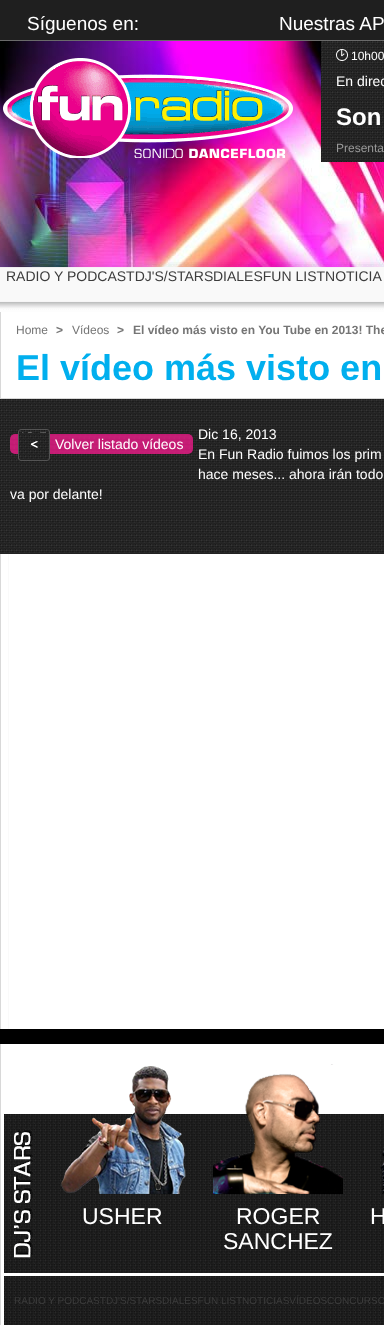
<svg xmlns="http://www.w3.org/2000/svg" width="384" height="1325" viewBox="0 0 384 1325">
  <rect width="100%" height="100%" fill="rgb(0,0,0)"/>
  <image x="0" y="41" width="384" height="227" href="pic1.png"/>
  <rect x="0" y="0" width="384" height="40" fill="rgb(31,31,31)"/>
  <rect x="0" y="40" width="384" height="1" fill="rgb(106,106,106)"/>
  <g font-family="Liberation Sans" font-size="19" fill="rgb(255,255,255)">
    <text x="27" y="30">Síguenos en:</text>
    <text x="279" y="30">Nuestras AP</text>
  </g>
  <image x="3" y="58" width="290" height="100" href="pic2.png"/>
  <image x="321" y="41" width="63" height="121" href="pic3.png"/>
  <image x="336" y="49" width="12" height="12" href="pic4.png"/>
  <text x="351" y="60" font-family="Liberation Sans" font-size="12" fill="rgb(255,255,255)">10h00</text>
  <text x="336" y="86" font-family="Liberation Sans" font-size="14" fill="rgb(255,255,255)">En direc</text>
  <text x="336" y="125" font-family="Liberation Sans" font-size="24" font-weight="bold" fill="rgb(255,255,255)">Son</text>
  <text x="336" y="152" font-family="Liberation Sans" font-size="12" fill="rgb(153,153,153)">Presenta</text>
  <image x="0" y="262" width="384" height="50" href="pic5.png"/>
  <g font-family="Liberation Sans" font-size="14" fill="rgb(60,60,60)">
    <text x="6" y="281">RADIO Y PODCASTDJ'S/STARS</text>
    <text x="213" y="281">DIALESFUN LISTNOTICIA</text>
  </g>
  <rect x="1" y="312" width="383" height="717" fill="rgb(255,255,255)"/>
  <rect x="0" y="312" width="1" height="717" fill="rgb(216,216,216)"/>
  <rect x="1" y="398" width="383" height="1" fill="rgb(216,216,216)"/>
  <text x="16" y="334" font-family="Liberation Sans" font-size="12" fill="rgb(117,117,117)">Home</text>
  <text x="56" y="334" font-family="Liberation Sans" font-size="12" font-weight="bold" fill="rgb(117,117,117)">&gt;</text>
  <text x="72" y="334" font-family="Liberation Sans" font-size="12" fill="rgb(117,117,117)">Vídeos</text>
  <g font-family="Liberation Sans" font-size="12" font-weight="bold" fill="rgb(117,117,117)">
    <text x="117" y="334">&gt;</text>
    <text x="133" y="334">El vídeo más visto en You Tube en 2013! The</text>
  </g>
  <text x="16" y="380" font-family="Liberation Sans" font-size="36" font-weight="bold" fill="rgb(1,175,238)">El vídeo más visto en</text>
  <rect x="8" y="554" width="1" height="475" fill="rgb(250,250,250)"/>
  <image x="0" y="399" width="384" height="155" href="pic6.png"/>
  <text x="198" y="439" font-family="Liberation Sans" font-size="14" fill="rgb(255,255,255)">Dic 16, 2013</text>
  <image x="10" y="434" width="183" height="20" href="pic7.png"/>
  <image x="18" y="429" width="32" height="32" href="pic8.png"/>
  <rect x="18.5" y="429.5" width="31" height="31" rx="2.5" fill="none" stroke="rgb(84,84,84)"/>
  <image x="22" y="432" width="24" height="16" href="pic9.png"/>
  <g font-family="Liberation Sans" font-size="14" fill="rgb(255,255,255)">
    <text x="55" y="449">Volver listado vídeos</text>
    <text>
      <tspan x="198" y="459">En Fun Radio fuimos los prim</tspan>
      <tspan x="198" y="479">hace meses... ahora irán todo</tspan>
    </text>
    <text x="10" y="499">va por delante!</text>
  </g>
  <rect x="1" y="1044" width="383" height="281" fill="rgb(255,255,255)"/>
  <path d="M0 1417V1044H1V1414Z" fill="rgb(216,216,216)"/>
  <image x="4" y="1114" width="380" height="159" href="pic10.png"/>
  <image x="14" y="1129" width="19" height="129" href="pic11.png"/>
  <image x="61" y="1066" width="125" height="128" href="pic12.png"/>
  <text x="82" y="1224" font-family="Liberation Sans" font-size="23" fill="rgb(255,255,255)">USHER</text>
  <image x="213" y="1064" width="130" height="130" href="pic13.png"/>
  <g font-family="Liberation Sans" font-size="23" fill="rgb(255,255,255)">
    <text x="236" y="1224">ROGER</text>
    <text x="223" y="1249">SANCHEZ</text>
  </g>
  <image x="380" y="1147" width="4" height="47" href="pic14.png"/>
  <text x="370" y="1224" font-family="Liberation Sans" font-size="23" fill="rgb(255,255,255)">H</text>
  <image x="4" y="1276" width="380" height="49" href="pic15.png"/>
  <text x="14" y="1304" font-family="Liberation Sans" font-size="10" fill="rgb(60,60,60)">RADIO Y PODCASTDJ'S/STARSDIALESFUN LISTNOTICIASVÍDEOSCONCURSO</text>
</svg>
